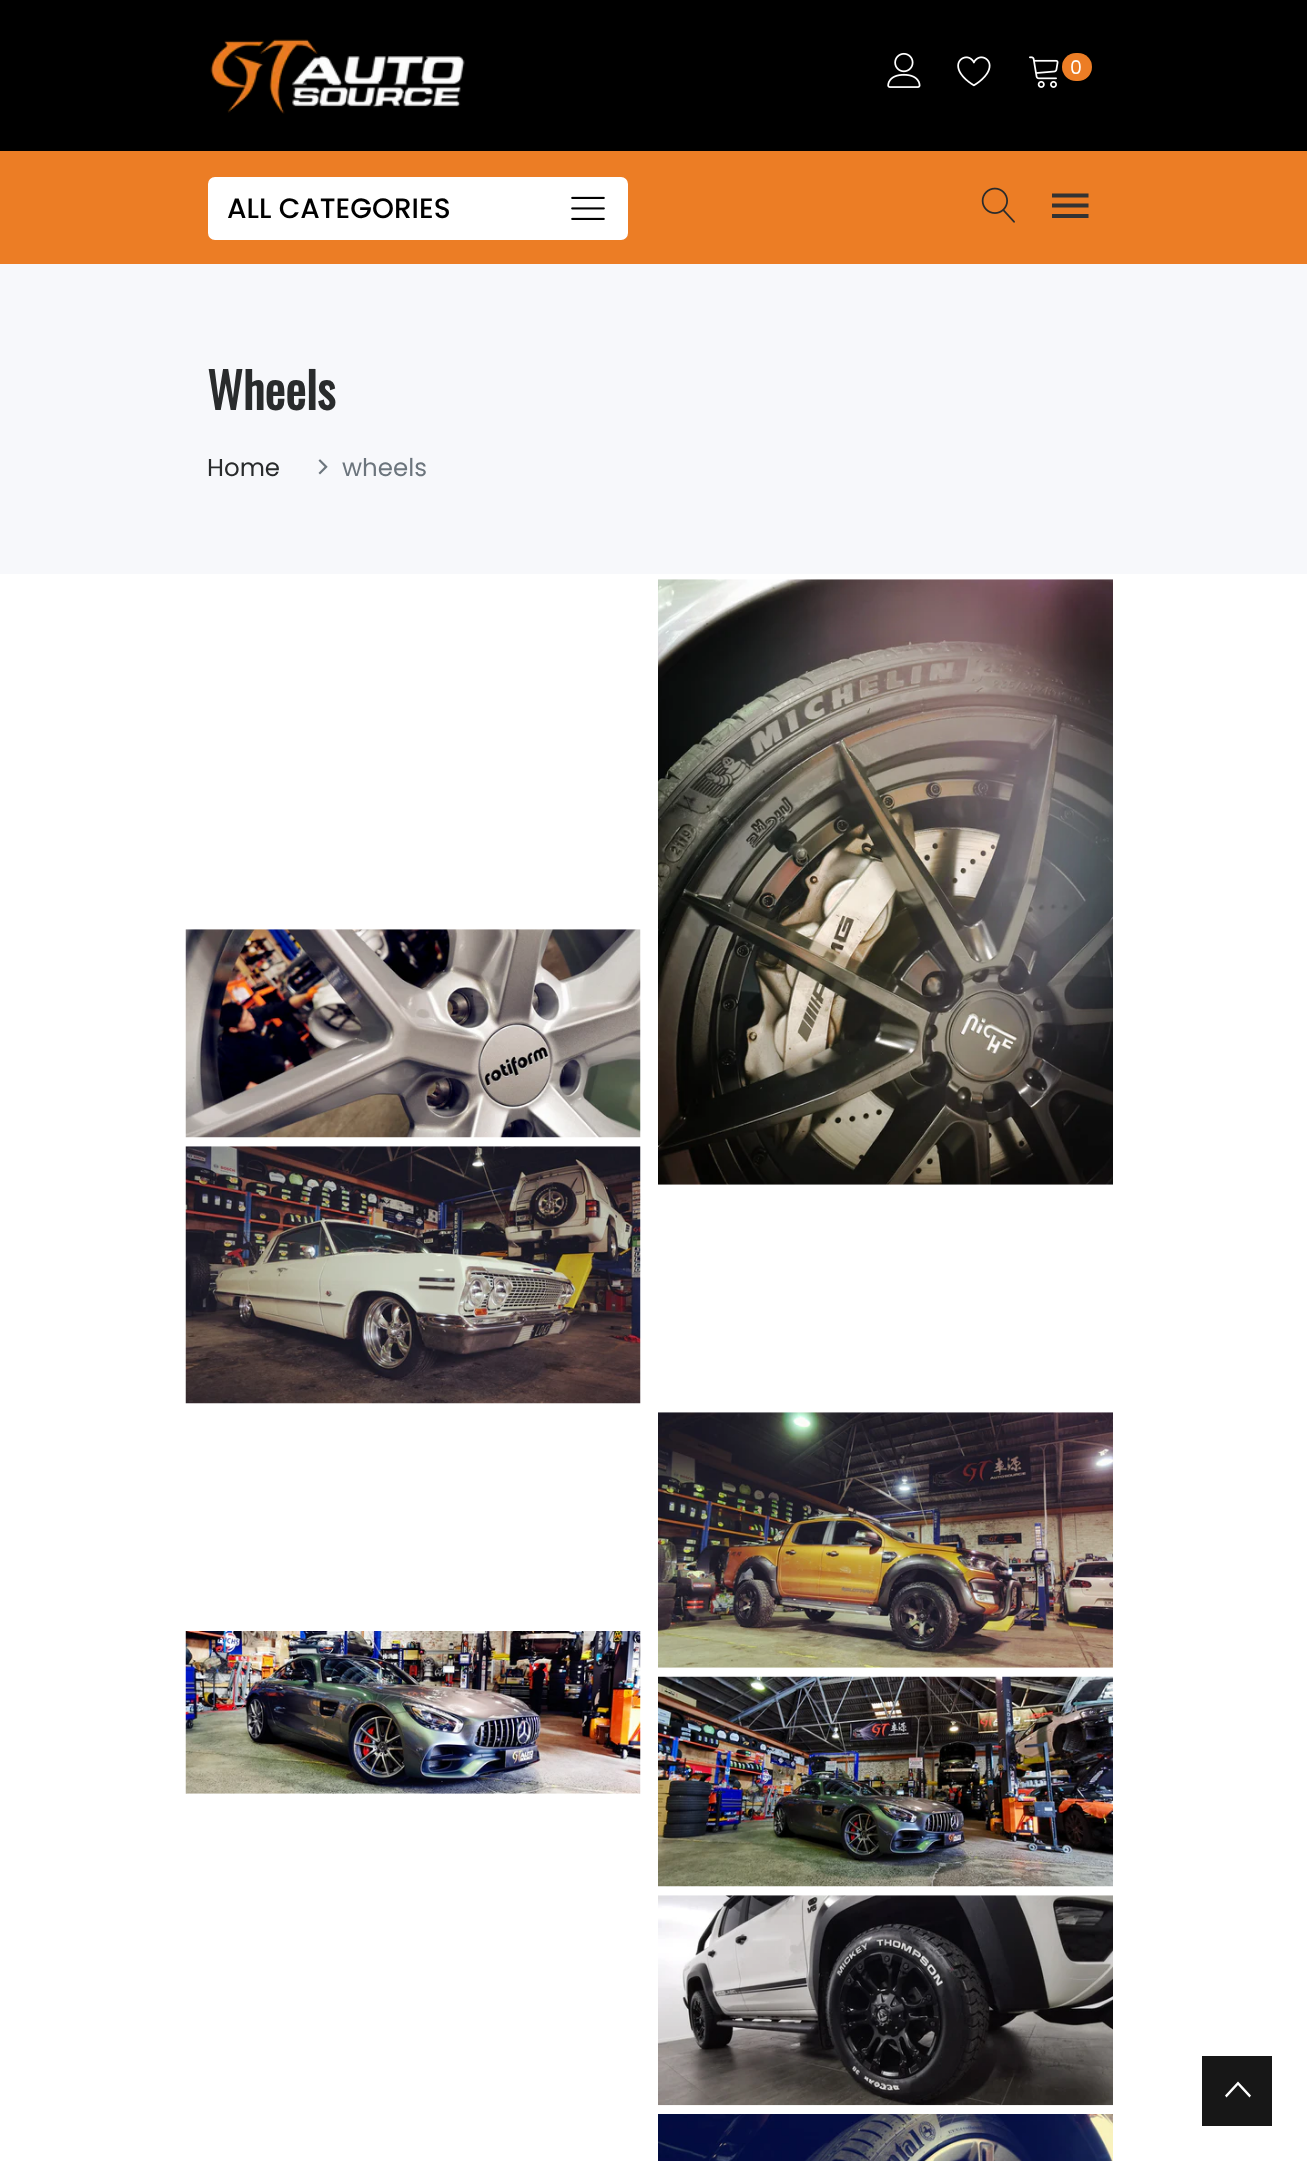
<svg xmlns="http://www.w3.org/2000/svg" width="1307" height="2161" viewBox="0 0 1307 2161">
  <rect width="100%" height="100%" fill="rgb(255,255,255)"/>
  <rect x="0" y="0" width="1307" height="151" fill="rgb(0,0,0)"/>
  <image x="210" y="39" width="255" height="75" href="pic1.png"/>
  <image x="887" y="52" width="34" height="36" href="pic2.png"/>
  <image x="957" y="56" width="34" height="31" href="pic3.png"/>
  <image x="1029" y="56" width="30" height="32" href="pic4.png"/>
  <rect x="1062" y="53" width="30" height="28" rx="14" fill="rgb(236,125,37)"/>
  <text x="1070" y="74" font-family="Poppins" font-size="19" fill="rgb(255,255,255)">0</text>
  <rect x="0" y="151" width="1307" height="113" fill="rgb(236,125,37)"/>
  <rect x="209" y="178" width="418" height="61" rx="6" fill="rgb(255,255,255)" stroke="rgb(255,255,255)" stroke-width="2"/>
  <text x="227" y="218" font-family="Poppins" font-size="28" font-weight="500" fill="rgb(0,0,0)">ALL CATEGORIES</text>
  <image x="571" y="196" width="34" height="24" href="pic5.png"/>
  <image x="981" y="187" width="34" height="36" href="pic6.png"/>
  <path d="M1052 218V214H1088.5V218ZM1052 207.5V203.5H1088.5V207.5ZM1052 193.5H1088.5V197.5H1052Z" fill="rgb(51,51,51)"/>
  <rect x="0" y="264" width="1307" height="310" fill="rgb(247,248,251)"/>
  <text x="207" y="410" font-family="Oswald" font-size="49" font-weight="bold" fill="rgb(41,43,44)">Wheels</text>
  <text x="207" y="476" font-family="Poppins" font-size="24.5" fill="rgb(41,43,44)">Home</text>
  <image x="318" y="459" width="10" height="16" href="pic7.png"/>
  <text x="342" y="476" font-family="Poppins" font-size="24.5" fill="rgb(108,117,125)">wheels</text>
  <image x="185" y="929" width="456" height="209" href="pic8.png"/>
  <image x="658" y="579" width="455" height="606" href="pic9.png"/>
  <image x="185" y="1146" width="456" height="258" href="pic10.png"/>
  <image x="658" y="1412" width="455" height="256" href="pic11.png"/>
  <image x="185" y="1631" width="456" height="163" href="pic12.png"/>
  <image x="658" y="1676" width="455" height="211" href="pic13.png"/>
  <image x="658" y="1895" width="455" height="211" href="pic14.png"/>
  <image x="658" y="2114" width="455" height="47" href="pic15.png"/>
  <rect x="1202" y="2056" width="70" height="70" fill="rgb(23,23,23)"/>
  <path d="M1249.5 2097.5L1238 2085L1226.5 2097.5L1225 2095.5L1238 2081.5L1251 2095.5Z" fill="rgb(255,255,255)"/>
</svg>
